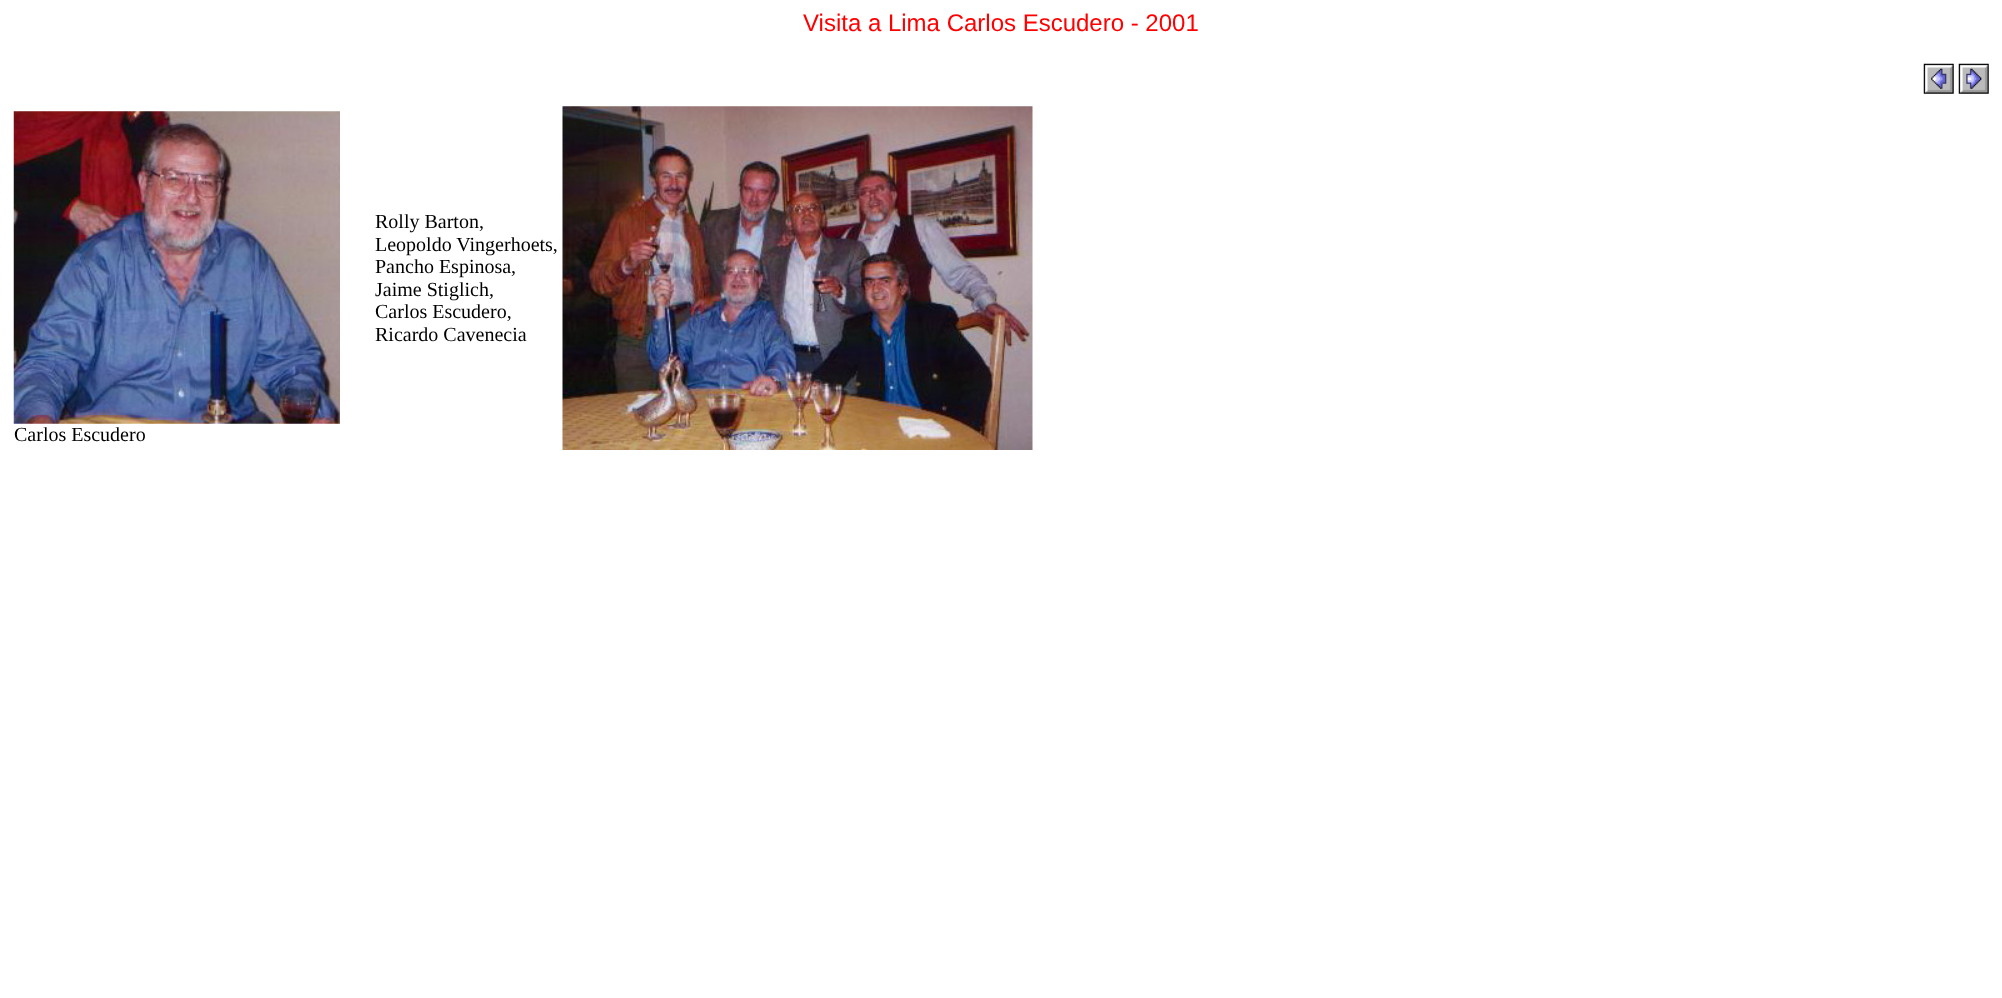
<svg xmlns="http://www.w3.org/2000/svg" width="2002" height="998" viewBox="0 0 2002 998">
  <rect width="100%" height="100%" fill="rgb(255,255,255)"/>
  <text x="803" y="31" font-family="Liberation Sans" font-size="24" fill="rgb(255,0,0)">Visita a Lima Carlos Escudero - 2001</text>
  <image x="1923" y="63" width="31" height="31" href="pic1.png"/>
  <image x="1958" y="63" width="31" height="31" href="pic2.png"/>
  <g font-family="Liberation Serif" font-size="20" fill="rgb(0,0,0)">
    <text>
      <tspan x="375" y="228">Rolly Barton,</tspan>
      <tspan x="375" y="251">Leopoldo Vingerhoets,</tspan>
      <tspan x="375" y="273">Pancho Espinosa,</tspan>
      <tspan x="375" y="296">Jaime Stiglich,</tspan>
      <tspan x="375" y="318">Carlos Escudero,</tspan>
      <tspan x="375" y="341">Ricardo Cavenecia</tspan>
    </text>
  </g>
  <image x="562" y="106" width="471" height="344" href="pic3.png"/>
  <image x="13" y="111" width="327" height="313" href="pic4.png"/>
  <text x="14" y="441" font-family="Liberation Serif" font-size="20" fill="rgb(0,0,0)">Carlos Escudero</text>
</svg>
